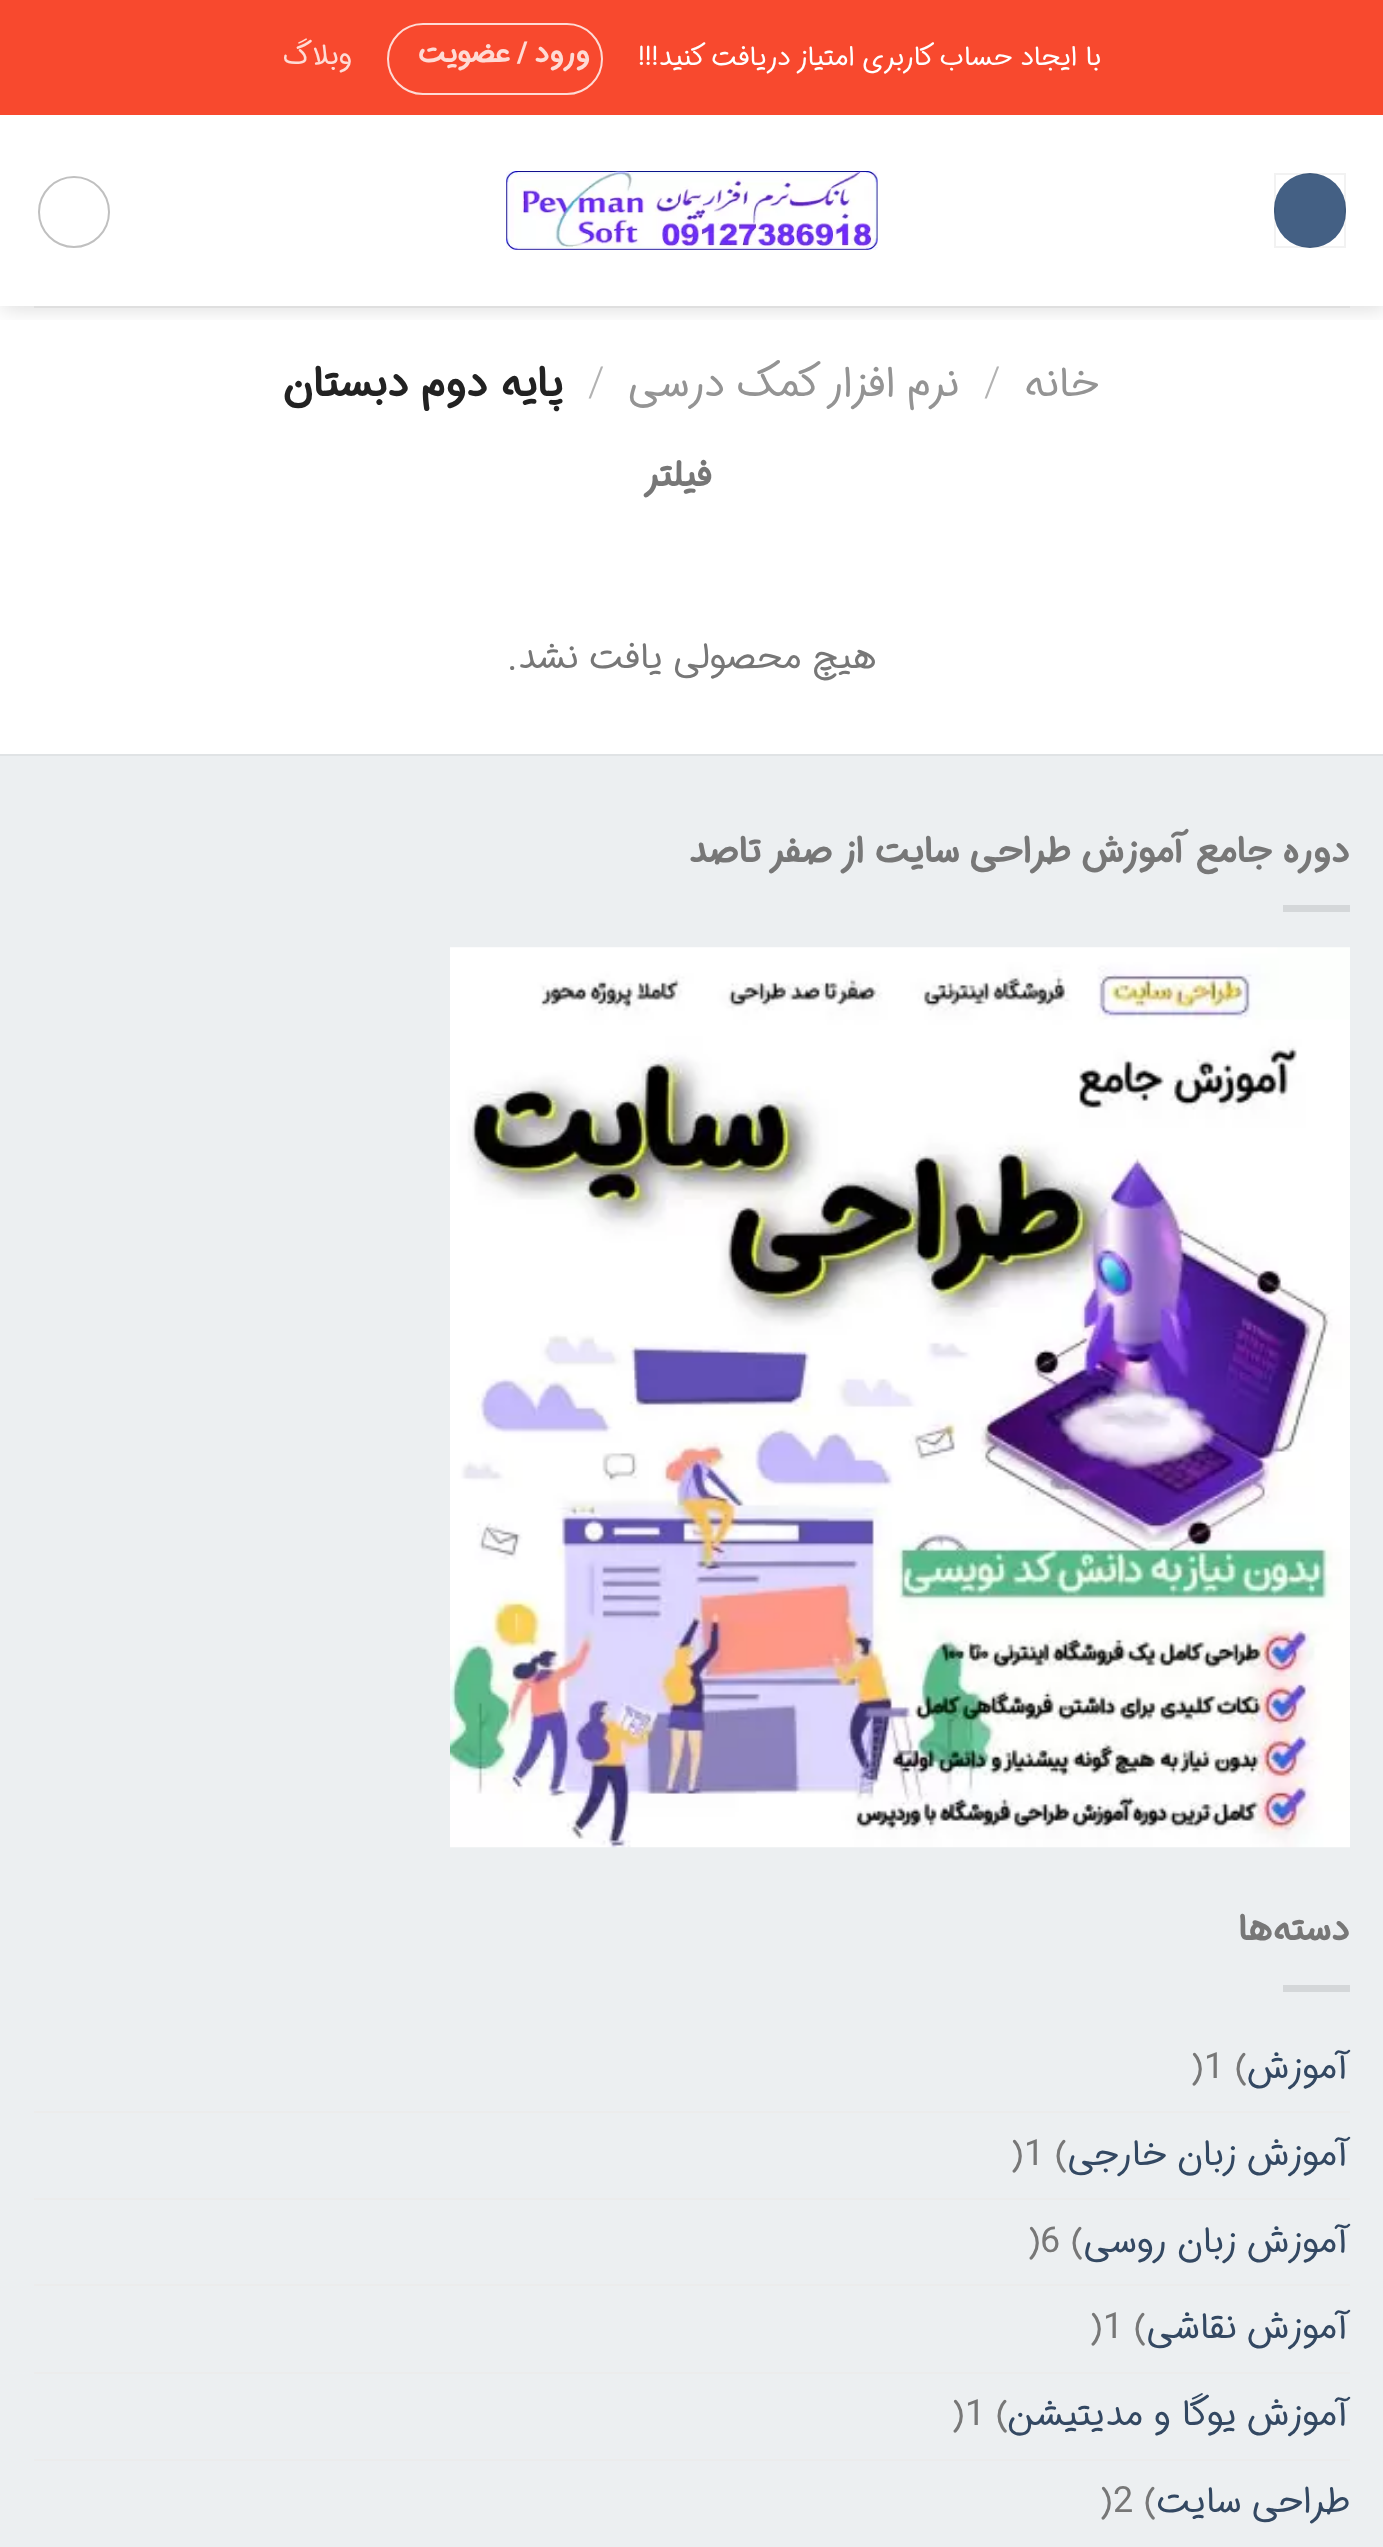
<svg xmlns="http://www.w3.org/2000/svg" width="1383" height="2547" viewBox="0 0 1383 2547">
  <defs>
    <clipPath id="clip1"><rect x="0" y="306" width="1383" height="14"/></clipPath>
  </defs>
  <rect width="100%" height="100%" fill="rgb(255,255,255)"/>
  <g clip-path="url(#clip1)">
    <rect x="2" y="2" width="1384" height="306" fill="rgba(0,0,0,0.15)" filter="blur(11px)"/>
  </g>
  <rect x="0" y="0" width="1383" height="115" fill="rgb(248,73,46)"/>
  <text x="1101" y="65" font-family="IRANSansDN" font-size="27" direction="rtl" fill="rgb(255,255,255)">با ایجاد حساب کاربری امتیاز دریافت کنید!!!</text>
  <rect x="388" y="24" width="214" height="70" rx="35" fill="none" stroke="rgb(254,219,213)" stroke-width="2"/>
  <text x="590" y="62" word-spacing="-2" font-family="IRANSansDN" font-size="28.75" font-weight="bold" letter-spacing="0.9" direction="rtl" fill="rgb(254,219,213)">ورود / عضویت</text>
  <text x="352" y="64" font-family="IRANSansDN" font-size="28.75" direction="rtl" fill="rgb(254,219,213)">وبلاگ</text>
  <rect x="1274" y="173" width="72" height="75" rx="36" fill="rgb(68,96,132)"/>
  <rect x="1275" y="174" width="70" height="73" fill="none" stroke="rgba(0,0,0,0.05)" stroke-width="2"/>
  <image x="506" y="171" width="372" height="79" href="pic1.png"/>
  <circle cx="74" cy="212" r="35" fill="none" stroke="rgb(192,192,192)" stroke-width="2"/>
  <rect x="34" y="306" width="1316" height="2" fill="rgb(223,223,223)"/>
  <text x="1099" y="396" font-family="IRANSansDN" font-size="41.5" direction="rtl" fill="rgb(148,148,148)">خانه</text>
  <text x="984" y="396" font-family="IRANSansDN" font-size="41.5" font-weight="300" fill="rgb(178,178,178)">/</text>
  <text x="959" y="396" font-family="IRANSansDN" font-size="41.5" direction="rtl" fill="rgb(148,148,148)">نرم افزار کمک درسی</text>
  <text x="588" y="396" font-family="IRANSansDN" font-size="41.5" font-weight="300" fill="rgb(178,178,178)">/</text>
  <text x="563" y="396" font-family="IRANSansDN" font-size="41.5" font-weight="bold" direction="rtl" fill="rgb(34,34,34)">پایه دوم دبستان</text>
  <text x="712" y="486" font-family="IRANSansDN" font-size="36" font-weight="bold" direction="rtl" fill="rgb(119,119,119)">فیلتر</text>
  <text x="876" y="668" font-family="IRANSansDN" font-size="36" direction="rtl" fill="rgb(119,119,119)">هیچ محصولی یافت نشد.</text>
  <rect x="0" y="756" width="1383" height="1791" fill="rgb(236,239,241)"/>
  <rect x="0" y="754" width="1383" height="2" fill="rgb(224,227,229)"/>
  <text x="1350" y="862" font-family="IRANSansDN" font-size="36" font-weight="bold" direction="rtl" fill="rgb(119,119,119)">دوره جامع آموزش طراحی سایت از صفر تاصد</text>
  <rect x="1283" y="905" width="67" height="7" fill="rgb(212,215,217)"/>
  <image x="450" y="947" width="900" height="901" href="pic2.png"/>
  <text x="1350" y="1940" font-family="IRANSansDN" font-size="36" font-weight="bold" direction="rtl" fill="rgb(119,119,119)">دسته‌ها</text>
  <rect x="1283" y="1985" width="67" height="7" fill="rgb(212,215,217)"/>
  <text x="1350" y="2078" font-family="IRANSansDN" font-size="36" direction="rtl" fill="rgb(51,72,98)">آموزش</text>
  <g font-family="IRANSansDN" font-size="36" fill="rgb(119,119,119)">
    <text x="1204" y="2078">1 (</text>
    <text x="1191" y="2078">)</text>
  </g>
  <rect x="34" y="2111" width="1316" height="2" fill="rgb(236,236,236)"/>
  <text x="1350" y="2165" font-family="IRANSansDN" font-size="36" direction="rtl" fill="rgb(51,72,98)">آموزش زبان خارجی</text>
  <g font-family="IRANSansDN" font-size="36" fill="rgb(119,119,119)">
    <text x="1024" y="2165">1 (</text>
    <text x="1011" y="2165">)</text>
  </g>
  <rect x="34" y="2198" width="1316" height="2" fill="rgb(236,236,236)"/>
  <text x="1350" y="2252" font-family="IRANSansDN" font-size="36" direction="rtl" fill="rgb(51,72,98)">آموزش زبان روسی</text>
  <g font-family="IRANSansDN" font-size="36" fill="rgb(119,119,119)">
    <text x="1040" y="2252">6 (</text>
    <text x="1028" y="2252">)</text>
  </g>
  <rect x="34" y="2284" width="1316" height="2" fill="rgb(236,236,236)"/>
  <text x="1350" y="2338" font-family="IRANSansDN" font-size="36" direction="rtl" fill="rgb(51,72,98)">آموزش نقاشی</text>
  <g font-family="IRANSansDN" font-size="36" fill="rgb(119,119,119)">
    <text x="1103" y="2338">1 (</text>
    <text x="1090" y="2338">)</text>
  </g>
  <rect x="34" y="2372" width="1316" height="2" fill="rgb(236,236,236)"/>
  <text x="1350" y="2425" font-family="IRANSansDN" font-size="36" direction="rtl" fill="rgb(51,72,98)">آموزش یوگا و مدیتیشن</text>
  <g font-family="IRANSansDN" font-size="36" fill="rgb(119,119,119)">
    <text x="965" y="2425">1 (</text>
    <text x="952" y="2425">)</text>
  </g>
  <rect x="34" y="2459" width="1316" height="2" fill="rgb(236,236,236)"/>
  <text x="1350" y="2512" font-family="IRANSansDN" font-size="36" direction="rtl" fill="rgb(51,72,98)">طراحی سایت</text>
  <g font-family="IRANSansDN" font-size="36" fill="rgb(119,119,119)">
    <text x="1113" y="2512">2 (</text>
    <text x="1100" y="2512">)</text>
  </g>
</svg>
